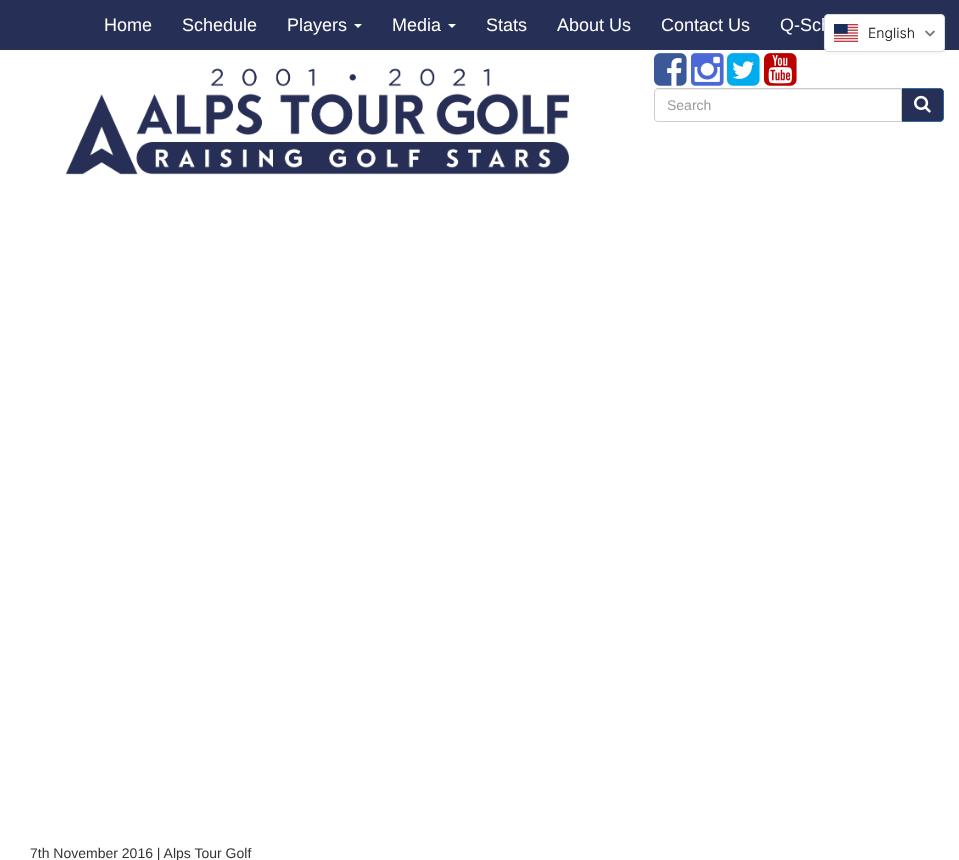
<svg xmlns="http://www.w3.org/2000/svg" width="959" height="860" viewBox="0 0 959 860">
  <rect width="100%" height="100%" fill="rgb(255,255,255)"/>
  <rect x="0" y="0" width="959" height="50" fill="rgb(38,48,86)"/>
  <g font-family="Liberation Sans" font-size="18" fill="rgb(255,255,255)">
    <text x="104" y="31">Home</text>
    <text x="182" y="31">Schedule</text>
    <text x="287" y="31">Players</text>
  </g>
  <path d="M354 24H362L358 28Z" fill="rgb(255,255,255)"/>
  <text x="392" y="31" font-family="Liberation Sans" font-size="18" fill="rgb(255,255,255)">Media</text>
  <path d="M448 24H456L452 28Z" fill="rgb(255,255,255)"/>
  <g font-family="Liberation Sans" font-size="18" fill="rgb(255,255,255)">
    <text x="486" y="31">Stats</text>
    <text x="557" y="31">About Us</text>
    <text x="661" y="31">Contact Us</text>
    <text x="780" y="31">Q-Sch</text>
  </g>
  <rect x="823" y="13" width="123" height="40" rx="5" fill="rgba(93,93,93,0.1)" filter="blur(2px)"/>
  <rect x="824.5" y="14.5" width="120" height="37" rx="3.5" fill="rgb(255,255,255)" stroke="rgb(218,220,224)"/>
  <image x="834" y="24" width="24" height="18" href="pic1.png"/>
  <text x="868" y="38" font-family="Inter" font-size="14" font-weight="300" fill="rgb(0,0,0)">English</text>
  <image x="925" y="30" width="10" height="7" href="pic2.png"/>
  <image x="65" y="68" width="504" height="107" href="pic3.png"/>
  <image x="654" y="53" width="33" height="33" href="pic4.png"/>
  <image x="691" y="53" width="33" height="33" href="pic5.png"/>
  <image x="727" y="53" width="33" height="33" href="pic6.png"/>
  <image x="764" y="53" width="33" height="33" href="pic7.png"/>
  <path d="M901.5 88.5H940C942 88.5 943.5 90 943.5 92V118C943.5 120 942 121.5 940 121.5H901.5Z" fill="rgb(38,48,86)" stroke="rgb(46,109,164)"/>
  <path d="M658 88H902V122H658C656 122 654 120 654 118V92C654 90 656 88 658 88Z" fill="rgb(255,255,255)"/>
  <path d="M658 90H901V89H658C656 89 655 91 655 93C655 91 656 90 658 90Z" fill="rgb(236,236,236)"/>
  <path d="M658 88.5H901.5V121.5H658C656 121.5 654.5 120 654.5 118V92C654.5 90 656 88.5 658 88.5Z" fill="none" stroke="rgb(204,204,204)"/>
  <text x="667" y="110" font-family="Liberation Sans" font-size="14" fill="rgb(153,153,153)">Search</text>
  <image x="914" y="95" width="17" height="18" href="pic8.png"/>
  <text x="30" y="858" font-family="Liberation Sans" font-size="14" fill="rgb(51,51,51)">7th November 2016 | Alps Tour Golf</text>
</svg>
